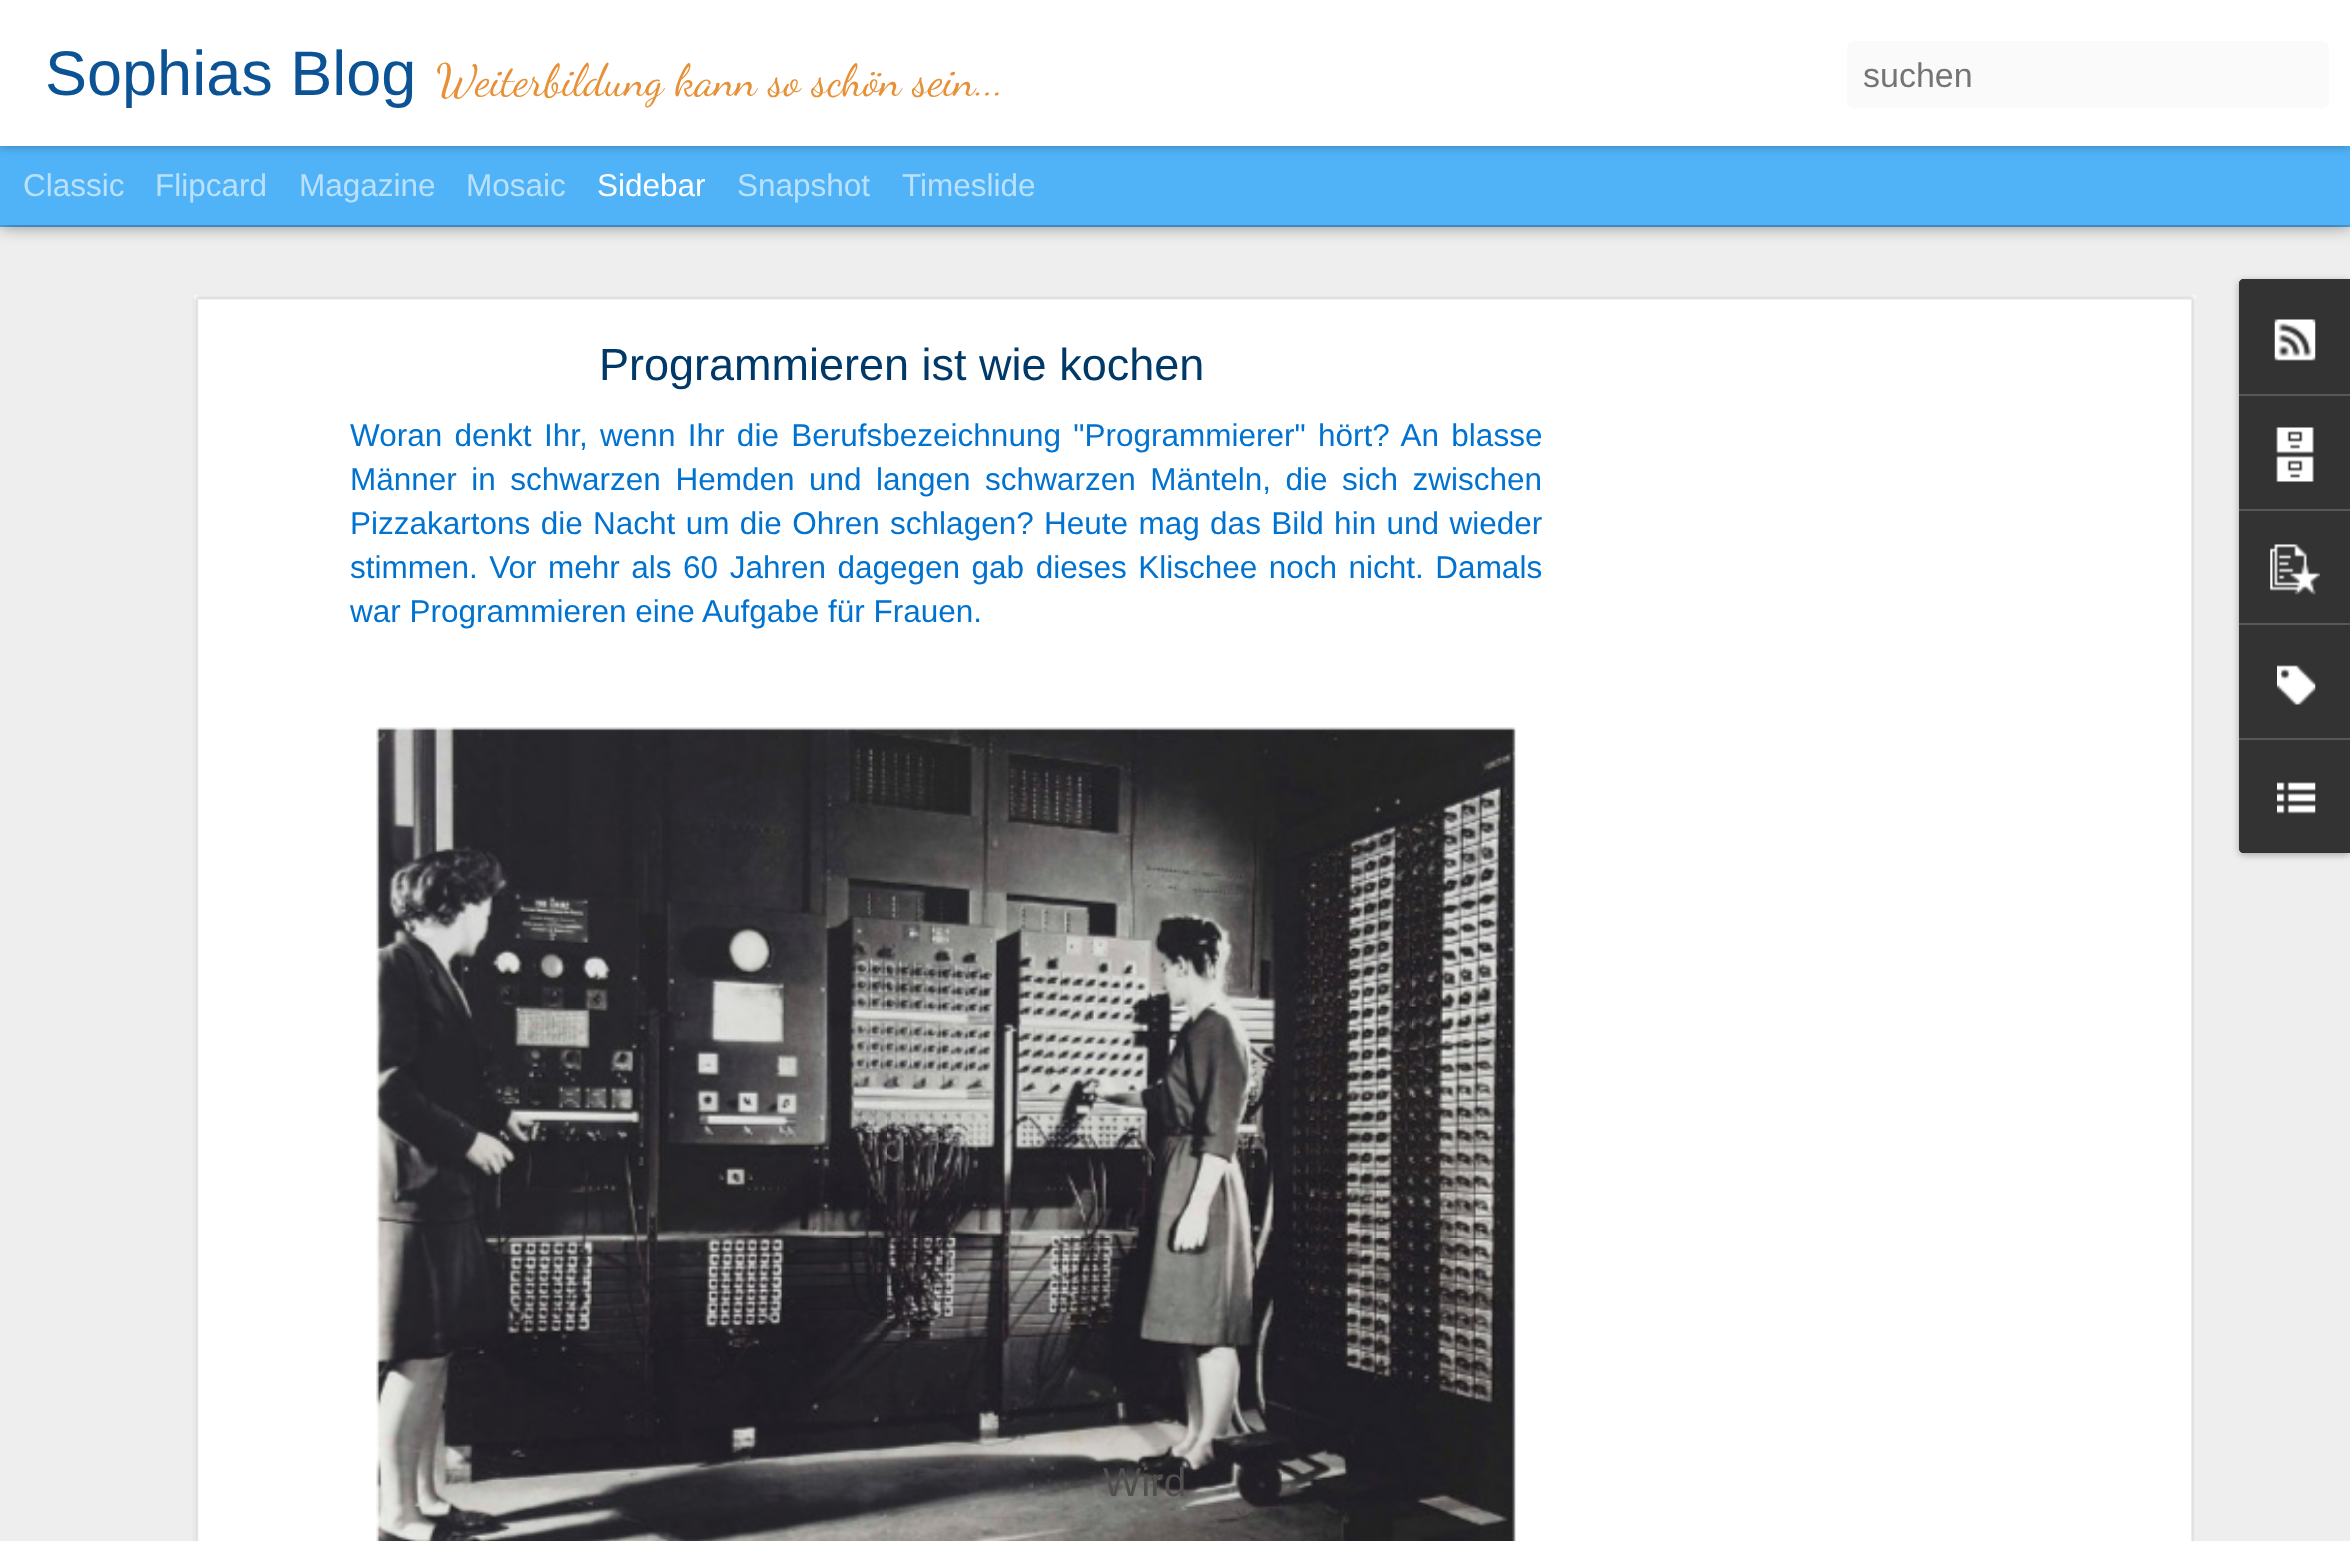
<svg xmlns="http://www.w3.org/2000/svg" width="2350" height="1541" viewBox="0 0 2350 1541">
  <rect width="100%" height="100%" fill="rgb(80,179,248)"/>
  <rect x="0" y="227" width="2350" height="1314" fill="rgb(238,238,238)"/>
  <rect x="0" y="146" width="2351" height="79" fill="rgba(0,0,0,0.5)" filter="blur(9px)"/>
  <rect x="0" y="146" width="2350" height="79" fill="rgb(80,179,248)"/>
  <rect x="0" y="0" width="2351" height="146" fill="rgba(0,0,0,0.3)" filter="blur(5.5px)"/>
  <rect x="0" y="0" width="2350" height="146" fill="rgb(255,255,255)"/>
  <text x="45" y="95" font-family="Liberation Sans" font-size="63" fill="rgb(11,83,148)">Sophias Blog</text>
  <text x="436" y="95" font-family="Dancing Script" font-size="45" fill="rgb(230,145,56)">Weiterbildung kann so schön sein...</text>
  <rect x="1847" y="41" width="482" height="67" rx="7" fill="rgb(250,250,250)"/>
  <text x="1863" y="87" font-family="Liberation Sans" font-size="34" fill="rgb(117,117,117)">suchen</text>
  <g font-family="Liberation Sans" font-size="31.5" fill="rgb(185,225,252)">
    <text x="23" y="196">Classic</text>
    <text x="155" y="196">Flipcard</text>
    <text x="299" y="196">Magazine</text>
    <text x="466" y="196">Mosaic</text>
  </g>
  <text x="597" y="196" font-family="Liberation Sans" font-size="31.5" fill="rgb(255,255,255)">Sidebar</text>
  <g font-family="Liberation Sans" font-size="31.5" fill="rgb(185,225,252)">
    <text x="737" y="196">Snapshot</text>
    <text x="902" y="196">Timeslide</text>
  </g>
  <rect x="194" y="295" width="2002" height="1246" fill="rgb(255,255,255)"/>
  <image x="193" y="295" width="2003" height="1246" href="pic1.png"/>
  <text x="599" y="380" font-family="Liberation Sans" font-size="45" fill="rgb(0,56,104)">Programmieren ist wie kochen</text>
  <g font-family="Liberation Sans" font-size="31.5" fill="rgb(0,114,208)">
    <text>
      <tspan x="350" y="446" word-spacing="3.6">Woran denkt Ihr, wenn Ihr die Berufsbezeichnung "Programmierer" hört? An blasse</tspan>
      <tspan x="350" y="490" word-spacing="5.75">Männer in schwarzen Hemden und langen schwarzen Mänteln, die sich zwischen</tspan>
      <tspan x="350" y="534" word-spacing="1.6">Pizzakartons die Nacht um die Ohren schlagen? Heute mag das Bild hin und wieder</tspan>
      <tspan x="350" y="578" word-spacing="2.75">stimmen. Vor mehr als 60 Jahren dagegen gab dieses Klischee noch nicht. Damals</tspan>
      <tspan x="350" y="622">war Programmieren eine Aufgabe für Frauen.</tspan>
    </text>
  </g>
  <image x="376" y="727" width="1140" height="814" href="pic2.png"/>
  <rect x="2239" y="281" width="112" height="574" rx="5" fill="rgba(0,0,0,0.3)" filter="blur(3.5px)"/>
  <path d="M2244 279H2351V853H2244C2241 853 2239 851 2239 848V284C2239 281 2241 279 2244 279Z" fill="rgb(51,51,51)"/>
  <path d="M2244 279H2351V394H2239V284C2239 281 2241 279 2244 279Z" fill="rgb(51,51,51)"/>
  <image x="2274" y="319" width="42" height="42" href="pic3.png"/>
  <rect x="2239" y="394" width="111" height="2" fill="rgb(88,88,88)"/>
  <image x="2276" y="427" width="38" height="55" href="pic4.png"/>
  <rect x="2239" y="509" width="111" height="2" fill="rgb(88,88,88)"/>
  <image x="2270" y="544" width="50" height="51" href="pic5.png"/>
  <rect x="2239" y="623" width="111" height="2" fill="rgb(88,88,88)"/>
  <image x="2277" y="665" width="39" height="40" href="pic6.png"/>
  <path d="M2239 738H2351V853H2244C2241 853 2239 851 2239 848Z" fill="rgb(51,51,51)"/>
  <rect x="2239" y="738" width="111" height="2" fill="rgb(88,88,88)"/>
  <image x="2277" y="782" width="39" height="32" href="pic7.png"/>
  <text x="1103" y="1496" font-family="Liberation Sans" font-size="40.5" fill="rgb(80,79,78)">Wird</text>
</svg>
